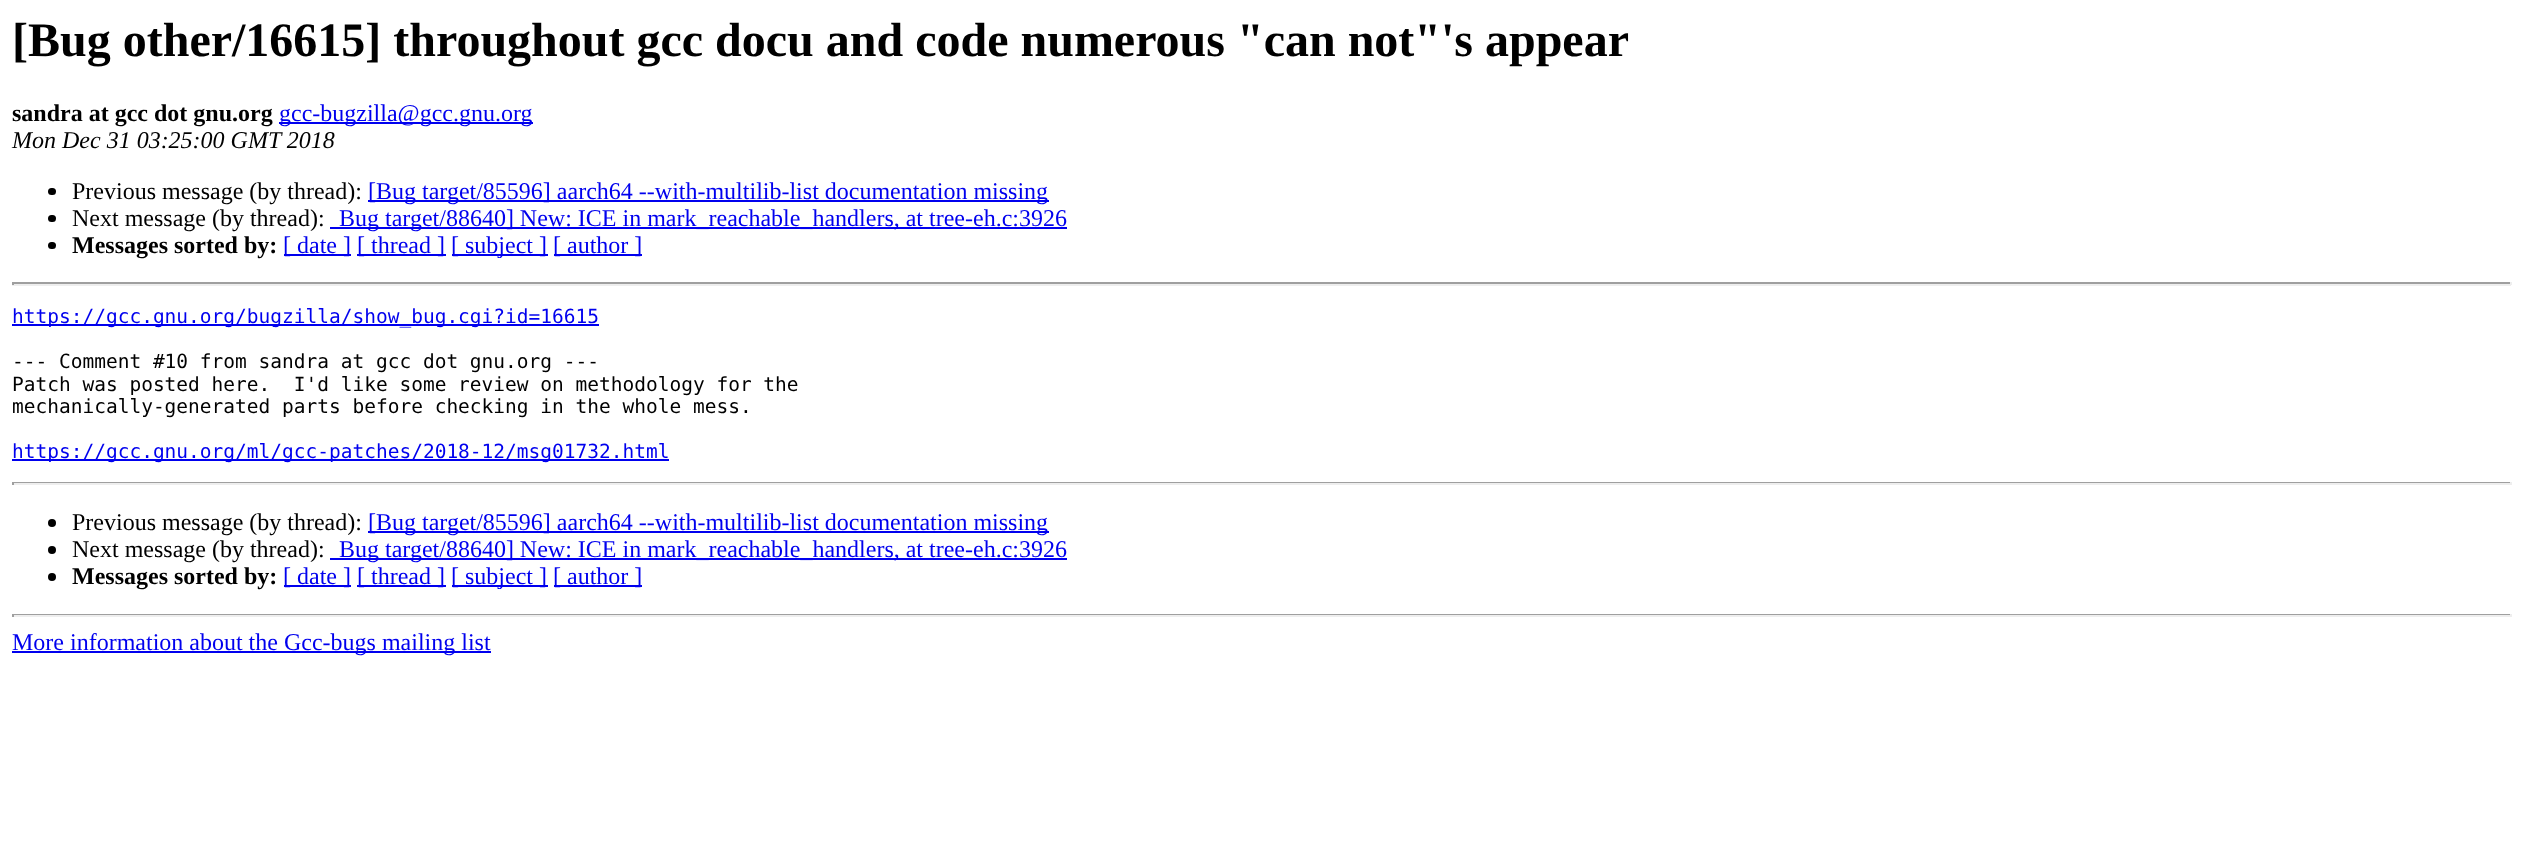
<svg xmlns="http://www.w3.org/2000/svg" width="2522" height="849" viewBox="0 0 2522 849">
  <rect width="100%" height="100%" fill="rgb(255,255,255)"/>
  <text x="12" y="56" font-family="Liberation Serif" font-size="48" font-weight="bold" fill="rgb(0,0,0)">[Bug other/16615] throughout gcc docu and code numerous "can not"'s appear</text>
  <text x="12" y="121" font-family="Liberation Serif" font-size="24" font-weight="bold" fill="rgb(0,0,0)">sandra at gcc dot gnu.org</text>
  <rect x="279" y="122" width="254" height="2" fill="rgb(0,0,238)"/>
  <text x="279" y="121" font-family="Liberation Serif" font-size="24" fill="rgb(0,0,238)">gcc-bugzilla@gcc.gnu.org</text>
  <text x="12" y="148" font-family="Liberation Serif" font-size="24" font-style="italic" fill="rgb(0,0,0)">Mon Dec 31 03:25:00 GMT 2018</text>
  <rect x="48" y="188" width="8" height="7" rx="3.5" fill="rgb(0,0,0)"/>
  <text x="72" y="199" font-family="Liberation Serif" font-size="24" fill="rgb(0,0,0)">Previous message (by thread):</text>
  <rect x="368" y="200" width="681" height="2" fill="rgb(0,0,238)"/>
  <text x="368" y="199" font-family="Liberation Serif" font-size="24" fill="rgb(0,0,238)">[Bug target/85596] aarch64 --with-multilib-list documentation missing</text>
  <rect x="48" y="215" width="8" height="7" rx="3.5" fill="rgb(0,0,0)"/>
  <text x="72" y="226" font-family="Liberation Serif" font-size="24" fill="rgb(0,0,0)">Next message (by thread):</text>
  <rect x="330" y="227" width="737" height="2" fill="rgb(0,0,238)"/>
  <text x="339" y="226" font-family="Liberation Serif" font-size="24" fill="rgb(0,0,238)">Bug target/88640] New: ICE in mark_reachable_handlers, at tree-eh.c:3926</text>
  <rect x="48" y="242" width="8" height="7" rx="3.5" fill="rgb(0,0,0)"/>
  <text x="72" y="253" font-family="Liberation Serif" font-size="24" font-weight="bold" fill="rgb(0,0,0)">Messages sorted by:</text>
  <rect x="284" y="254" width="67" height="2" fill="rgb(0,0,238)"/>
  <text x="283" y="253" font-family="Liberation Serif" font-size="24" fill="rgb(0,0,238)">[ date ]</text>
  <rect x="357" y="254" width="89" height="2" fill="rgb(0,0,238)"/>
  <text x="357" y="253" font-family="Liberation Serif" font-size="24" fill="rgb(0,0,238)">[ thread ]</text>
  <rect x="452" y="254" width="96" height="2" fill="rgb(0,0,238)"/>
  <text x="451" y="253" font-family="Liberation Serif" font-size="24" fill="rgb(0,0,238)">[ subject ]</text>
  <rect x="554" y="254" width="88" height="2" fill="rgb(0,0,238)"/>
  <text x="553" y="253" font-family="Liberation Serif" font-size="24" fill="rgb(0,0,238)">[ author ]</text>
  <rect x="12" y="282" width="2499" height="2" fill="rgb(159,159,159)"/>
  <rect x="2510" y="282" width="2" height="3" fill="rgb(238,238,238)"/>
  <rect x="12" y="284" width="2499" height="2" fill="rgb(238,238,238)"/>
  <rect x="12" y="282" width="2" height="3" fill="rgb(159,159,159)"/>
  <rect x="12" y="324" width="587" height="2" fill="rgb(0,0,238)"/>
  <text x="12" y="323" font-family="DejaVu Sans Mono" font-size="19.5" fill="rgb(0,0,238)">https://gcc.gnu.org/bugzilla/show_bug.cgi?id=16615</text>
  <g font-family="DejaVu Sans Mono" font-size="19.5" fill="rgb(0,0,0)">
    <text xml:space="preserve"><tspan x="12" y="368">--- Comment #10 from sandra at gcc dot gnu.org ---</tspan><tspan x="12" y="391">Patch was posted here.  I'd like some review on methodology for the</tspan><tspan x="12" y="413">mechanically-generated parts before checking in the whole mess.</tspan></text>
  </g>
  <rect x="12" y="459" width="657" height="2" fill="rgb(0,0,238)"/>
  <text x="12" y="458" font-family="DejaVu Sans Mono" font-size="19.5" fill="rgb(0,0,238)">https://gcc.gnu.org/ml/gcc-patches/2018-12/msg01732.html</text>
  <rect x="12" y="482" width="2499" height="1" fill="rgb(159,159,159)"/>
  <rect x="2510" y="482" width="2" height="3" fill="rgb(238,238,238)"/>
  <rect x="12" y="483" width="2499" height="2" fill="rgb(238,238,238)"/>
  <rect x="12" y="482" width="2" height="3" fill="rgb(159,159,159)"/>
  <circle cx="52" cy="523" r="4" fill="rgb(0,0,0)"/>
  <text x="72" y="530" font-family="Liberation Serif" font-size="24" fill="rgb(0,0,0)">Previous message (by thread):</text>
  <rect x="368" y="531" width="681" height="2" fill="rgb(0,0,238)"/>
  <text x="368" y="530" font-family="Liberation Serif" font-size="24" fill="rgb(0,0,238)">[Bug target/85596] aarch64 --with-multilib-list documentation missing</text>
  <circle cx="52" cy="550" r="4" fill="rgb(0,0,0)"/>
  <text x="72" y="557" font-family="Liberation Serif" font-size="24" fill="rgb(0,0,0)">Next message (by thread):</text>
  <rect x="330" y="558" width="737" height="2" fill="rgb(0,0,238)"/>
  <text x="339" y="557" font-family="Liberation Serif" font-size="24" fill="rgb(0,0,238)">Bug target/88640] New: ICE in mark_reachable_handlers, at tree-eh.c:3926</text>
  <circle cx="52" cy="577" r="4" fill="rgb(0,0,0)"/>
  <text x="72" y="584" font-family="Liberation Serif" font-size="24" font-weight="bold" fill="rgb(0,0,0)">Messages sorted by:</text>
  <rect x="284" y="585" width="67" height="2" fill="rgb(0,0,238)"/>
  <text x="283" y="584" font-family="Liberation Serif" font-size="24" fill="rgb(0,0,238)">[ date ]</text>
  <rect x="357" y="585" width="89" height="2" fill="rgb(0,0,238)"/>
  <text x="357" y="584" font-family="Liberation Serif" font-size="24" fill="rgb(0,0,238)">[ thread ]</text>
  <rect x="452" y="585" width="96" height="2" fill="rgb(0,0,238)"/>
  <text x="451" y="584" font-family="Liberation Serif" font-size="24" fill="rgb(0,0,238)">[ subject ]</text>
  <rect x="554" y="585" width="88" height="2" fill="rgb(0,0,238)"/>
  <text x="553" y="584" font-family="Liberation Serif" font-size="24" fill="rgb(0,0,238)">[ author ]</text>
  <rect x="12" y="614" width="2499" height="1" fill="rgb(159,159,159)"/>
  <rect x="2510" y="614" width="2" height="3" fill="rgb(238,238,238)"/>
  <rect x="12" y="615" width="2499" height="2" fill="rgb(238,238,238)"/>
  <rect x="12" y="614" width="2" height="3" fill="rgb(159,159,159)"/>
  <rect x="12" y="651" width="479" height="2" fill="rgb(0,0,238)"/>
  <text x="12" y="650" font-family="Liberation Serif" font-size="24" fill="rgb(0,0,238)">More information about the Gcc-bugs mailing list</text>
</svg>
